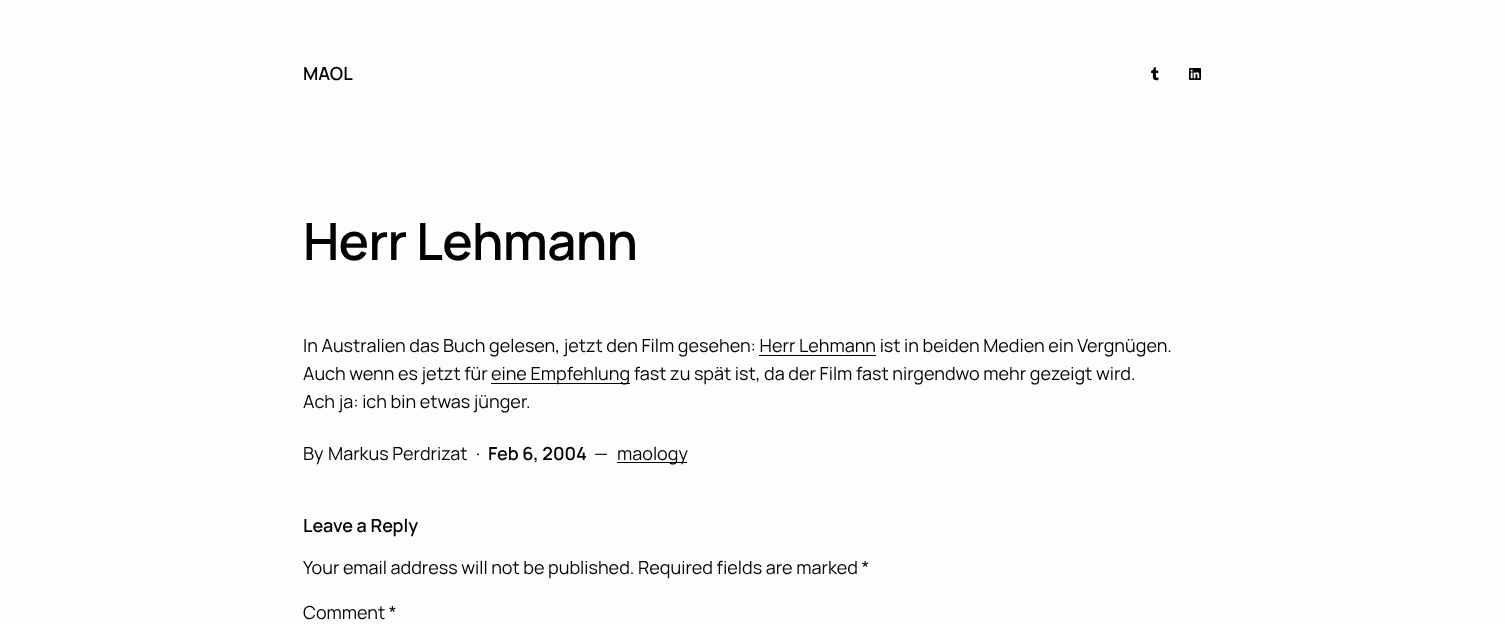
<svg xmlns="http://www.w3.org/2000/svg" width="1505" height="624" viewBox="0 0 1505 624">
  <rect width="100%" height="100%" fill="rgb(253,253,253)"/>
  <text x="303" y="80" font-family="Manrope" font-size="18" font-weight="600" fill="rgb(1,2,3)">MAOL</text>
  <image x="1151" y="67" width="8" height="14" href="pic1.png"/>
  <image x="1189" y="68" width="12" height="12" href="pic2.png"/>
  <text x="303" y="260" font-family="Manrope" font-size="51.25" font-weight="600" letter-spacing="-0.75" fill="rgb(1,2,3)">Herr Lehmann</text>
  <text x="303" y="352" font-family="Manrope" font-size="18" fill="rgb(1,2,3)">In Australien das Buch gelesen, jetzt den Film gesehen: Herr Lehmann ist in beiden Medien ein Vergnügen.</text>
  <rect x="759" y="355" width="117" height="1" fill="rgb(1,2,3)"/>
  <text x="303" y="380" font-family="Manrope" font-size="18" fill="rgb(1,2,3)">Auch wenn es jetzt für</text>
  <rect x="491" y="383" width="139" height="1" fill="rgb(1,2,3)"/>
  <g font-family="Manrope" font-size="18" fill="rgb(1,2,3)">
    <text x="491" y="380">eine Empfehlung fast zu spät ist, da der Film fast nirgendwo mehr gezeigt wird.</text>
    <text x="303" y="408">Ach ja: ich bin etwas jünger.</text>
    <text x="303" y="460">By</text>
    <text x="328" y="460">Markus Perdrizat</text>
    <text x="476" y="460">·</text>
  </g>
  <text x="488" y="460" font-family="Manrope" font-size="18" font-weight="600" fill="rgb(1,2,3)">Feb 6, 2004</text>
  <text x="594" y="460" font-family="Manrope" font-size="18" fill="rgb(1,2,3)">—</text>
  <rect x="617" y="462" width="70" height="1" fill="rgb(1,2,3)"/>
  <text x="617" y="460" font-family="Manrope" font-size="18" fill="rgb(1,2,3)">maology</text>
  <text x="303" y="532" font-family="Manrope" font-size="18" font-weight="600" fill="rgb(1,2,3)">Leave a Reply</text>
  <g font-family="Manrope" font-size="18" fill="rgb(1,2,3)">
    <text x="303" y="574">Your email address will not be published. Required fields are marked *</text>
    <text x="303" y="619">Comment *</text>
  </g>
</svg>
